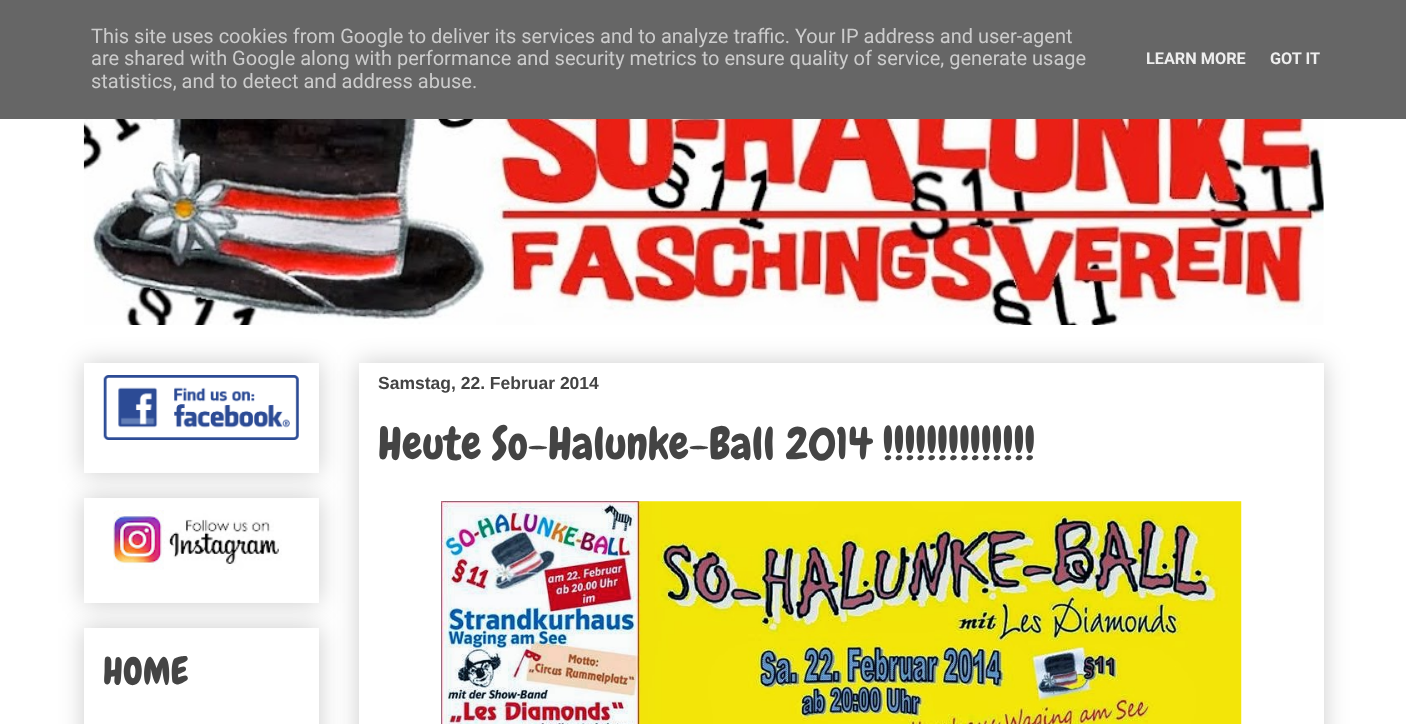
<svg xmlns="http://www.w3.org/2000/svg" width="1406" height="724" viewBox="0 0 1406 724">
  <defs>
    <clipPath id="clip1"><path d="M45 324H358V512H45ZM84 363H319V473H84Z" clip-rule="evenodd"/></clipPath>
    <clipPath id="clip2"><path d="M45 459H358V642H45ZM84 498H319V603H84Z" clip-rule="evenodd"/></clipPath>
    <clipPath id="clip3"><path d="M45 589H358V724H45ZM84 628H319V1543H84Z" clip-rule="evenodd"/></clipPath>
  </defs>
  <rect width="100%" height="100%" fill="rgb(255,255,255)"/>
  <rect x="0" y="0" width="1406" height="119" fill="rgb(102,102,102)"/>
  <g font-family="Roboto" font-size="20" fill="rgb(204,204,204)">
    <text>
      <tspan x="91" y="43">This site uses cookies from Google to deliver its services and to analyze traffic. Your IP address and user-agent</tspan>
      <tspan x="91" y="65">are shared with Google along with performance and security metrics to ensure quality of service, generate usage</tspan>
      <tspan x="91" y="88">statistics, and to detect and address abuse.</tspan>
    </text>
  </g>
  <g font-family="Roboto" font-size="16.25" font-weight="bold" fill="rgb(238,238,238)">
    <text x="1146" y="64">LEARN MORE</text>
    <text x="1270" y="64">GOT IT</text>
  </g>
  <image x="83" y="119" width="1241" height="206" href="pic1.png"/>
  <rect x="359" y="363" width="965" height="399" fill="rgba(0,0,0,0.2)" filter="blur(12.5px)"/>
  <rect x="359" y="363" width="965" height="361" fill="rgb(255,255,255)"/>
  <text x="378" y="389" font-family="Liberation Sans" font-size="17.5" font-weight="bold" fill="rgb(68,68,68)">Samstag, 22. Februar 2014</text>
  <text x="378" y="459" font-family="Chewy" font-size="45" fill="rgb(68,68,68)">Heute So-Halunke-Ball 2014 !!!!!!!!!!!!!!</text>
  <image x="441" y="501" width="801" height="223" href="pic2.png"/>
  <g clip-path="url(#clip1)">
    <rect x="84" y="363" width="235" height="110" fill="rgba(0,0,0,0.2)" filter="blur(12.5px)"/>
  </g>
  <image x="103" y="375" width="196" height="65" href="pic3.png"/>
  <g clip-path="url(#clip2)">
    <rect x="84" y="498" width="235" height="105" fill="rgba(0,0,0,0.2)" filter="blur(12.5px)"/>
  </g>
  <image x="113" y="510" width="169" height="60" href="pic4.png"/>
  <g clip-path="url(#clip3)">
    <rect x="84" y="628" width="235" height="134" fill="rgba(0,0,0,0.2)" filter="blur(12.5px)"/>
  </g>
  <text x="103" y="684" font-family="Chewy" font-size="37.5" fill="rgb(68,68,68)">HOME</text>
</svg>
